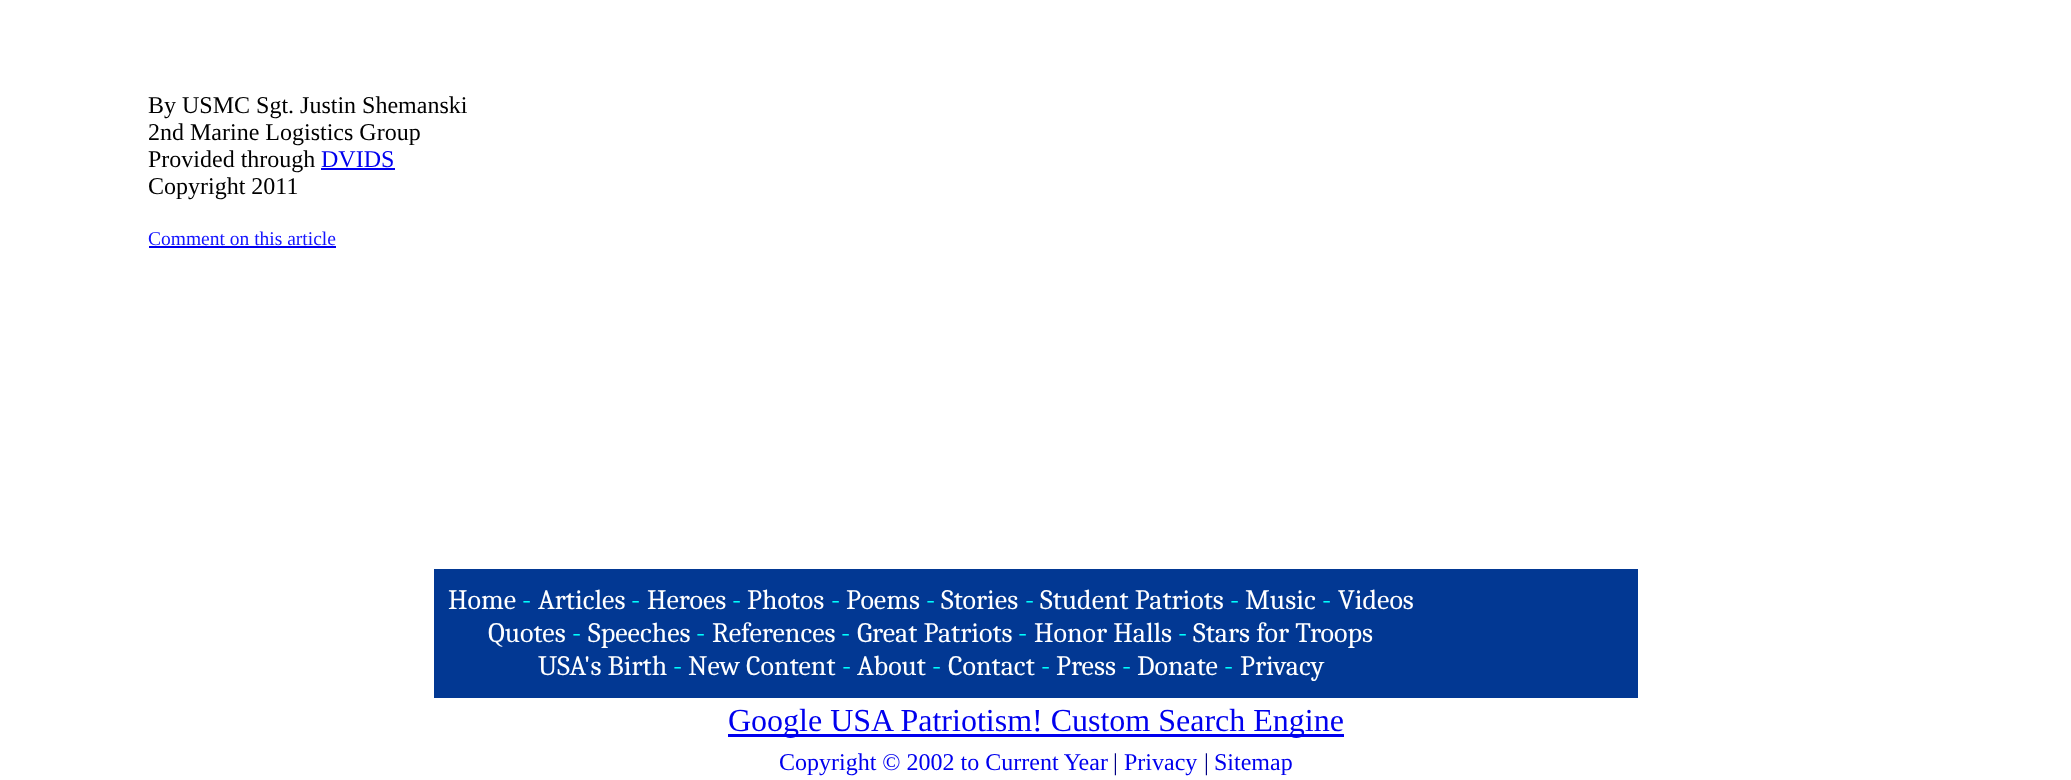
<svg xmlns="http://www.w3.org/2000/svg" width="2071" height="780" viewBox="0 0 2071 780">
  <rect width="100%" height="100%" fill="rgb(255,255,255)"/>
  <g font-family="Liberation Serif" font-size="24" fill="rgb(0,0,0)">
    <text>
      <tspan x="148" y="113">By USMC Sgt. Justin Shemanski</tspan>
      <tspan x="148" y="140">2nd Marine Logistics Group</tspan>
      <tspan x="148" y="167">Provided through</tspan>
    </text>
  </g>
  <text x="321" y="167" font-family="Liberation Serif" font-size="24" fill="rgb(0,0,238)">DVIDS</text>
  <rect x="321" y="168" width="74" height="2" fill="rgb(0,0,238)"/>
  <text x="148" y="194" font-family="Liberation Serif" font-size="24" fill="rgb(0,0,0)">Copyright 2011</text>
  <text x="148" y="245" font-family="Liberation Serif" font-size="19.5" fill="rgb(20,20,255)">Comment on this article</text>
  <rect x="149" y="246" width="187" height="2" fill="rgb(0,0,238)"/>
  <rect x="434" y="569" width="1204" height="129" fill="rgb(2,56,147)"/>
  <text x="448" y="609" font-family="Caladea" font-size="28" fill="rgb(255,255,255)">Home</text>
  <text x="522" y="609" font-family="Caladea" font-size="28" fill="rgb(0,255,255)">-</text>
  <text x="538" y="609" font-family="Caladea" font-size="28" fill="rgb(255,255,255)">Articles</text>
  <text x="631" y="609" font-family="Caladea" font-size="28" fill="rgb(0,255,255)">-</text>
  <text x="647" y="609" font-family="Caladea" font-size="28" fill="rgb(255,255,255)">Heroes</text>
  <text x="732" y="609" font-family="Caladea" font-size="28" fill="rgb(0,255,255)">-</text>
  <text x="747" y="609" font-family="Caladea" font-size="28" fill="rgb(255,255,255)">Photos</text>
  <text x="831" y="609" font-family="Caladea" font-size="28" fill="rgb(0,255,255)">-</text>
  <text x="846" y="609" font-family="Caladea" font-size="28" fill="rgb(255,255,255)">Poems</text>
  <text x="926" y="609" font-family="Caladea" font-size="28" fill="rgb(0,255,255)">-</text>
  <text x="941" y="609" font-family="Caladea" font-size="28" fill="rgb(255,255,255)">Stories</text>
  <text x="1025" y="609" font-family="Caladea" font-size="28" fill="rgb(0,255,255)">-</text>
  <text x="1040" y="609" font-family="Caladea" font-size="28" fill="rgb(255,255,255)">Student Patriots</text>
  <text x="1230" y="609" font-family="Caladea" font-size="28" fill="rgb(0,255,255)">-</text>
  <text x="1245" y="609" font-family="Caladea" font-size="28" fill="rgb(255,255,255)">Music</text>
  <text x="1322" y="609" font-family="Caladea" font-size="28" fill="rgb(0,255,255)">-</text>
  <g font-family="Caladea" font-size="28" fill="rgb(255,255,255)">
    <text x="1338" y="609">Videos</text>
    <text x="488" y="642">Quotes</text>
  </g>
  <text x="572" y="642" font-family="Caladea" font-size="28" fill="rgb(0,255,255)">-</text>
  <text x="588" y="642" font-family="Caladea" font-size="28" fill="rgb(255,255,255)">Speeches</text>
  <text x="696" y="642" font-family="Caladea" font-size="28" fill="rgb(0,255,255)">-</text>
  <text x="712" y="642" font-family="Caladea" font-size="28" fill="rgb(255,255,255)">References</text>
  <text x="841" y="642" font-family="Caladea" font-size="28" fill="rgb(0,255,255)">-</text>
  <text x="857" y="642" font-family="Caladea" font-size="28" fill="rgb(255,255,255)">Great Patriots</text>
  <text x="1018" y="642" font-family="Caladea" font-size="28" fill="rgb(0,255,255)">-</text>
  <text x="1034" y="642" font-family="Caladea" font-size="28" fill="rgb(255,255,255)">Honor Halls</text>
  <text x="1178" y="642" font-family="Caladea" font-size="28" fill="rgb(0,255,255)">-</text>
  <g font-family="Caladea" font-size="28" fill="rgb(255,255,255)">
    <text x="1193" y="642">Stars for Troops</text>
    <text x="538" y="675">USA's Birth</text>
  </g>
  <text x="673" y="675" font-family="Caladea" font-size="28" fill="rgb(0,255,255)">-</text>
  <text x="688" y="675" font-family="Caladea" font-size="28" fill="rgb(255,255,255)">New Content</text>
  <text x="842" y="675" font-family="Caladea" font-size="28" fill="rgb(0,255,255)">-</text>
  <text x="857" y="675" font-family="Caladea" font-size="28" fill="rgb(255,255,255)">About</text>
  <text x="932" y="675" font-family="Caladea" font-size="28" fill="rgb(0,255,255)">-</text>
  <text x="948" y="675" font-family="Caladea" font-size="28" fill="rgb(255,255,255)">Contact</text>
  <text x="1041" y="675" font-family="Caladea" font-size="28" fill="rgb(0,255,255)">-</text>
  <text x="1056" y="675" font-family="Caladea" font-size="28" fill="rgb(255,255,255)">Press</text>
  <text x="1122" y="675" font-family="Caladea" font-size="28" fill="rgb(0,255,255)">-</text>
  <text x="1137" y="675" font-family="Caladea" font-size="28" fill="rgb(255,255,255)">Donate</text>
  <text x="1224" y="675" font-family="Caladea" font-size="28" fill="rgb(0,255,255)">-</text>
  <text x="1240" y="675" font-family="Caladea" font-size="28" fill="rgb(255,255,255)">Privacy</text>
  <rect x="728" y="734" width="616" height="3" fill="rgb(0,0,238)"/>
  <text x="728" y="731" font-family="Liberation Serif" font-size="32" fill="rgb(0,0,238)">Google USA Patriotism! Custom Search Engine</text>
  <text x="779" y="770" font-family="Liberation Serif" font-size="24" fill="rgb(0,0,238)">Copyright © 2002 to Current Year</text>
  <text x="1113" y="770" font-family="Liberation Serif" font-size="24" fill="rgb(0,0,133)">|</text>
  <text x="1124" y="770" font-family="Liberation Serif" font-size="24" fill="rgb(0,0,238)">Privacy</text>
  <text x="1204" y="770" font-family="Liberation Serif" font-size="24" fill="rgb(0,0,133)">|</text>
  <text x="1214" y="770" font-family="Liberation Serif" font-size="24" fill="rgb(0,0,238)">Sitemap</text>
</svg>
